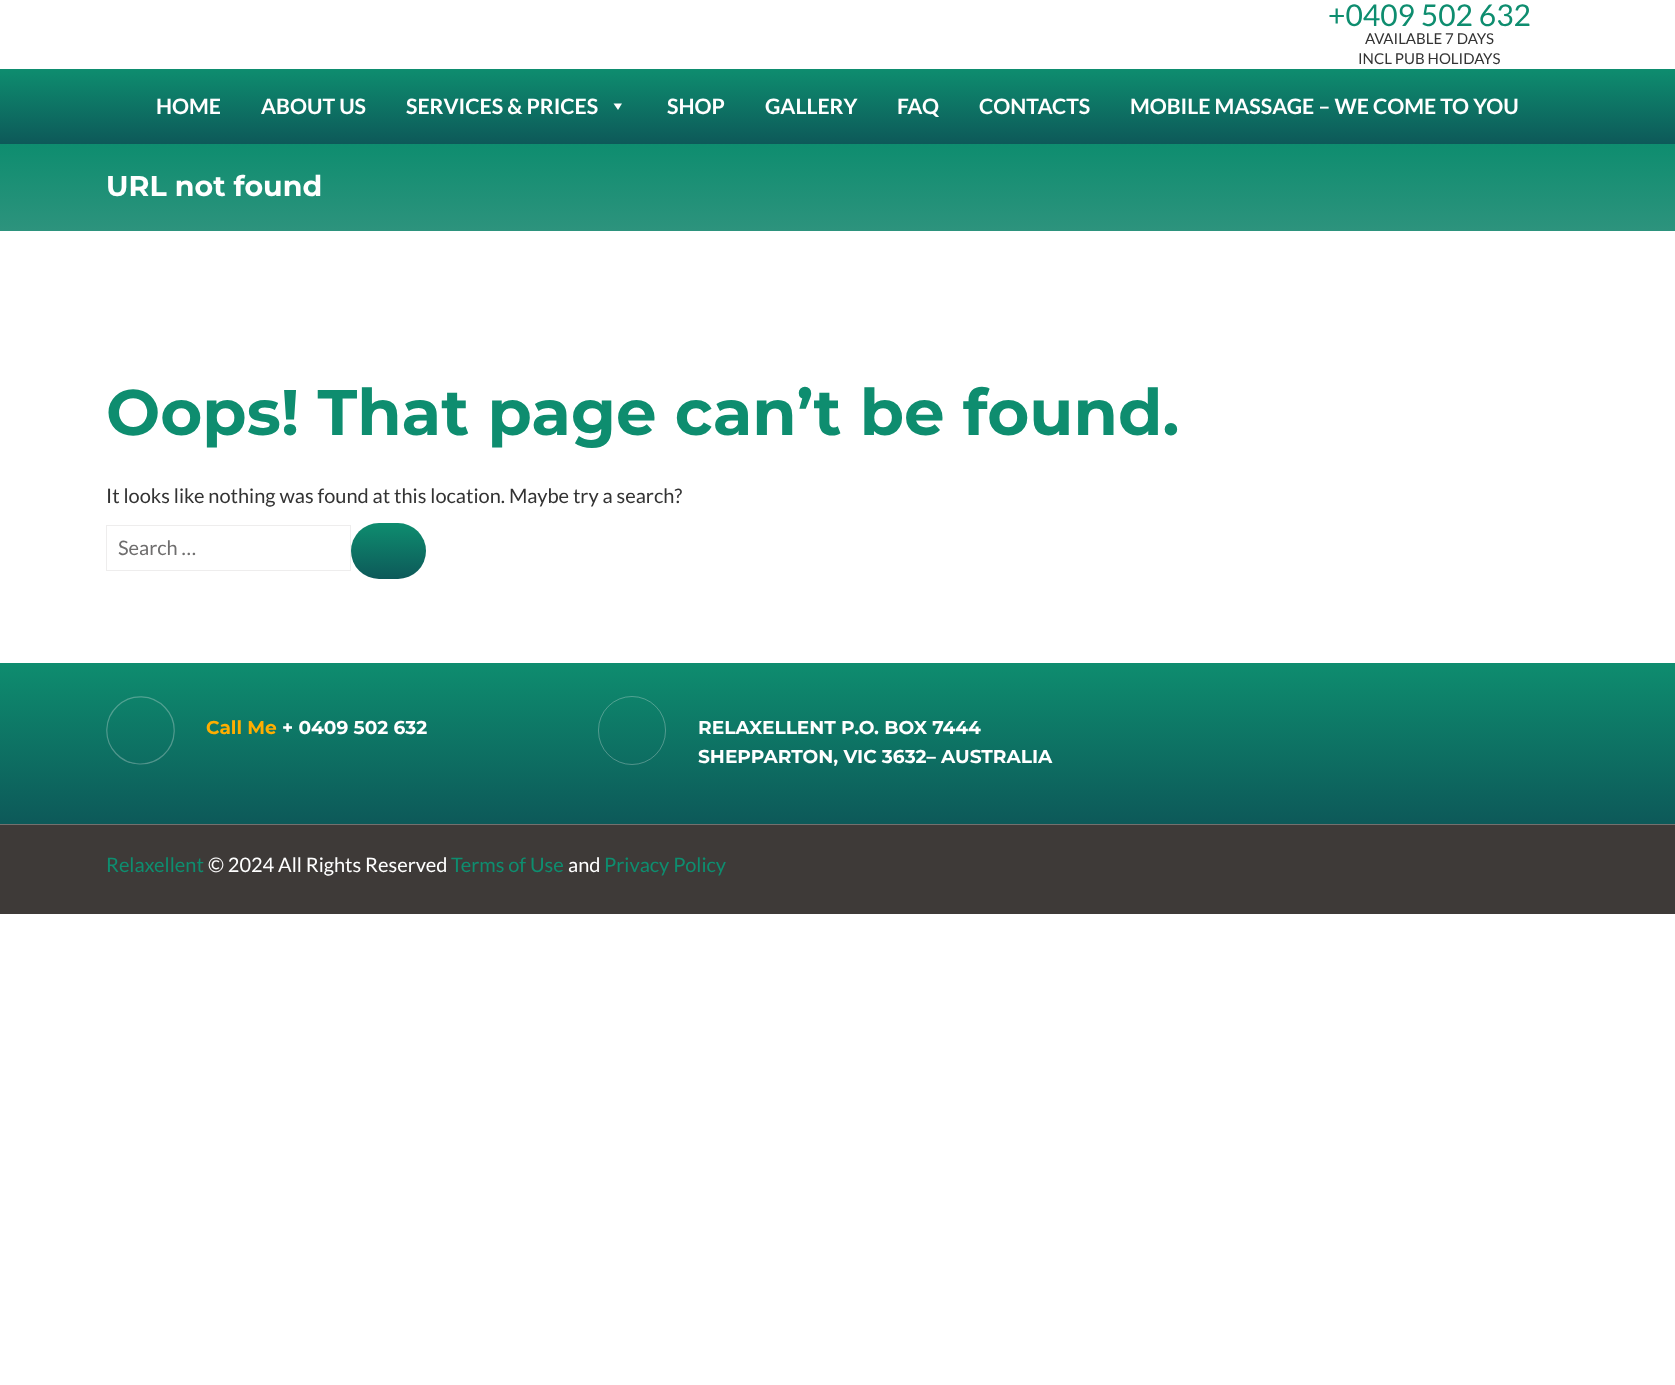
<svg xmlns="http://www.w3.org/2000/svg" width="1675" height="1385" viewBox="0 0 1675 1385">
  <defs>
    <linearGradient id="g1" gradientUnits="userSpaceOnUse" x1="838" y1="69" x2="838" y2="144"><stop offset="0" stop-color="rgb(14,141,111)"/><stop offset="1" stop-color="rgb(13,89,89)"/></linearGradient>
    <linearGradient id="g2" gradientUnits="userSpaceOnUse" x1="838" y1="144" x2="838" y2="231"><stop offset="0" stop-color="rgb(14,141,111)"/><stop offset="1" stop-color="rgb(45,147,125)"/></linearGradient>
    <linearGradient id="g3" gradientUnits="userSpaceOnUse" x1="389" y1="523" x2="389" y2="579"><stop offset="0" stop-color="rgb(14,141,111)"/><stop offset="1" stop-color="rgb(13,89,89)"/></linearGradient>
    <linearGradient id="g4" gradientUnits="userSpaceOnUse" x1="838" y1="662" x2="838" y2="824"><stop offset="0" stop-color="rgb(14,141,111)"/><stop offset="1" stop-color="rgb(13,89,89)"/></linearGradient>
  </defs>
  <rect width="100%" height="100%" fill="rgb(255,255,255)"/>
  <text x="1328" y="26" font-family="Lato" font-size="30" fill="rgb(14,141,111)">+0409 502 632</text>
  <g font-family="Lato" font-size="15" fill="rgb(51,51,51)">
    <text x="1365" y="44">AVAILABLE 7 DAYS</text>
    <text x="1358" y="64">INCL PUB HOLIDAYS</text>
  </g>
  <rect x="0" y="69" width="1675" height="75" fill="url(#g1)"/>
  <g font-family="Lato" font-size="21.25" font-weight="bold" fill="rgb(255,255,255)">
    <text x="156" y="114">HOME</text>
    <text x="261" y="114">ABOUT US</text>
    <text x="406" y="114">SERVICES &amp; PRICES</text>
  </g>
  <path d="M622 103.5L618 110L613.5 103.5Z" fill="rgb(255,255,255)"/>
  <g font-family="Lato" font-size="21.25" font-weight="bold" fill="rgb(255,255,255)">
    <text x="667" y="114">SHOP</text>
    <text x="765" y="114">GALLERY</text>
    <text x="897" y="114">FAQ</text>
    <text x="979" y="114">CONTACTS</text>
    <text x="1130" y="114">MOBILE MASSAGE – WE COME TO YOU</text>
  </g>
  <rect x="0" y="144" width="1675" height="87" fill="url(#g2)"/>
  <text x="106" y="196" font-family="Montserrat" font-size="28.5" font-weight="bold" fill="rgb(255,255,255)">URL not found</text>
  <text x="106" y="435" font-family="Montserrat" font-size="64.25" font-weight="bold" fill="rgb(14,141,111)">Oops! That page can’t be found.</text>
  <text x="106" y="503" font-family="Lato" font-size="20" fill="rgb(51,51,51)">It looks like nothing was found at this location. Maybe try a search?</text>
  <rect x="106.5" y="525.5" width="244" height="45" fill="none" stroke="rgb(238,237,237)"/>
  <text x="118" y="555" font-family="Lato" font-size="20" fill="rgb(111,110,110)">Search …</text>
  <rect x="351" y="523" width="75" height="56" rx="28" fill="url(#g3)"/>
  <rect x="0" y="663" width="1675" height="161" fill="url(#g4)"/>
  <path d="M163.5 755C150 767.5 128.5 767 116 753.5C103 740 104 718.5 117.5 706C131 693 152.5 694 165 707.5C178 721 177 742.5 163.5 755Z" fill="none" stroke="rgba(238,237,237,0.3)" stroke-width="1.2"/>
  <text x="206" y="734" font-family="Montserrat" font-size="18.6" font-weight="bold" fill="rgb(255,174,0)">Call Me</text>
  <text x="282" y="734" font-family="Montserrat" font-size="18.6" font-weight="bold" fill="rgb(255,255,255)">+ 0409 502 632</text>
  <rect x="598.5" y="696.5" width="67" height="68" rx="33.5" fill="none" stroke="rgba(238,237,237,0.3)"/>
  <g font-family="Montserrat" font-size="18.6" font-weight="bold" fill="rgb(255,255,255)">
    <text>
      <tspan x="698" y="734">RELAXELLENT P.O. BOX 7444</tspan>
      <tspan x="698" y="763">SHEPPARTON, VIC 3632– AUSTRALIA</tspan>
    </text>
  </g>
  <rect x="0" y="825" width="1675" height="89" fill="rgb(62,58,56)"/>
  <rect x="0" y="824" width="1675" height="1" fill="rgb(115,112,110)"/>
  <text x="106" y="872" font-family="Lato" font-size="20" fill="rgb(14,141,111)">Relaxellent</text>
  <text x="208" y="872" font-family="Lato" font-size="20" fill="rgb(255,255,255)">© 2024 All Rights Reserved</text>
  <text x="451" y="872" font-family="Lato" font-size="20" fill="rgb(14,141,111)">Terms of Use</text>
  <text x="568" y="872" font-family="Lato" font-size="20" fill="rgb(255,255,255)">and</text>
  <text x="604" y="872" font-family="Lato" font-size="20" fill="rgb(14,141,111)">Privacy Policy</text>
</svg>
